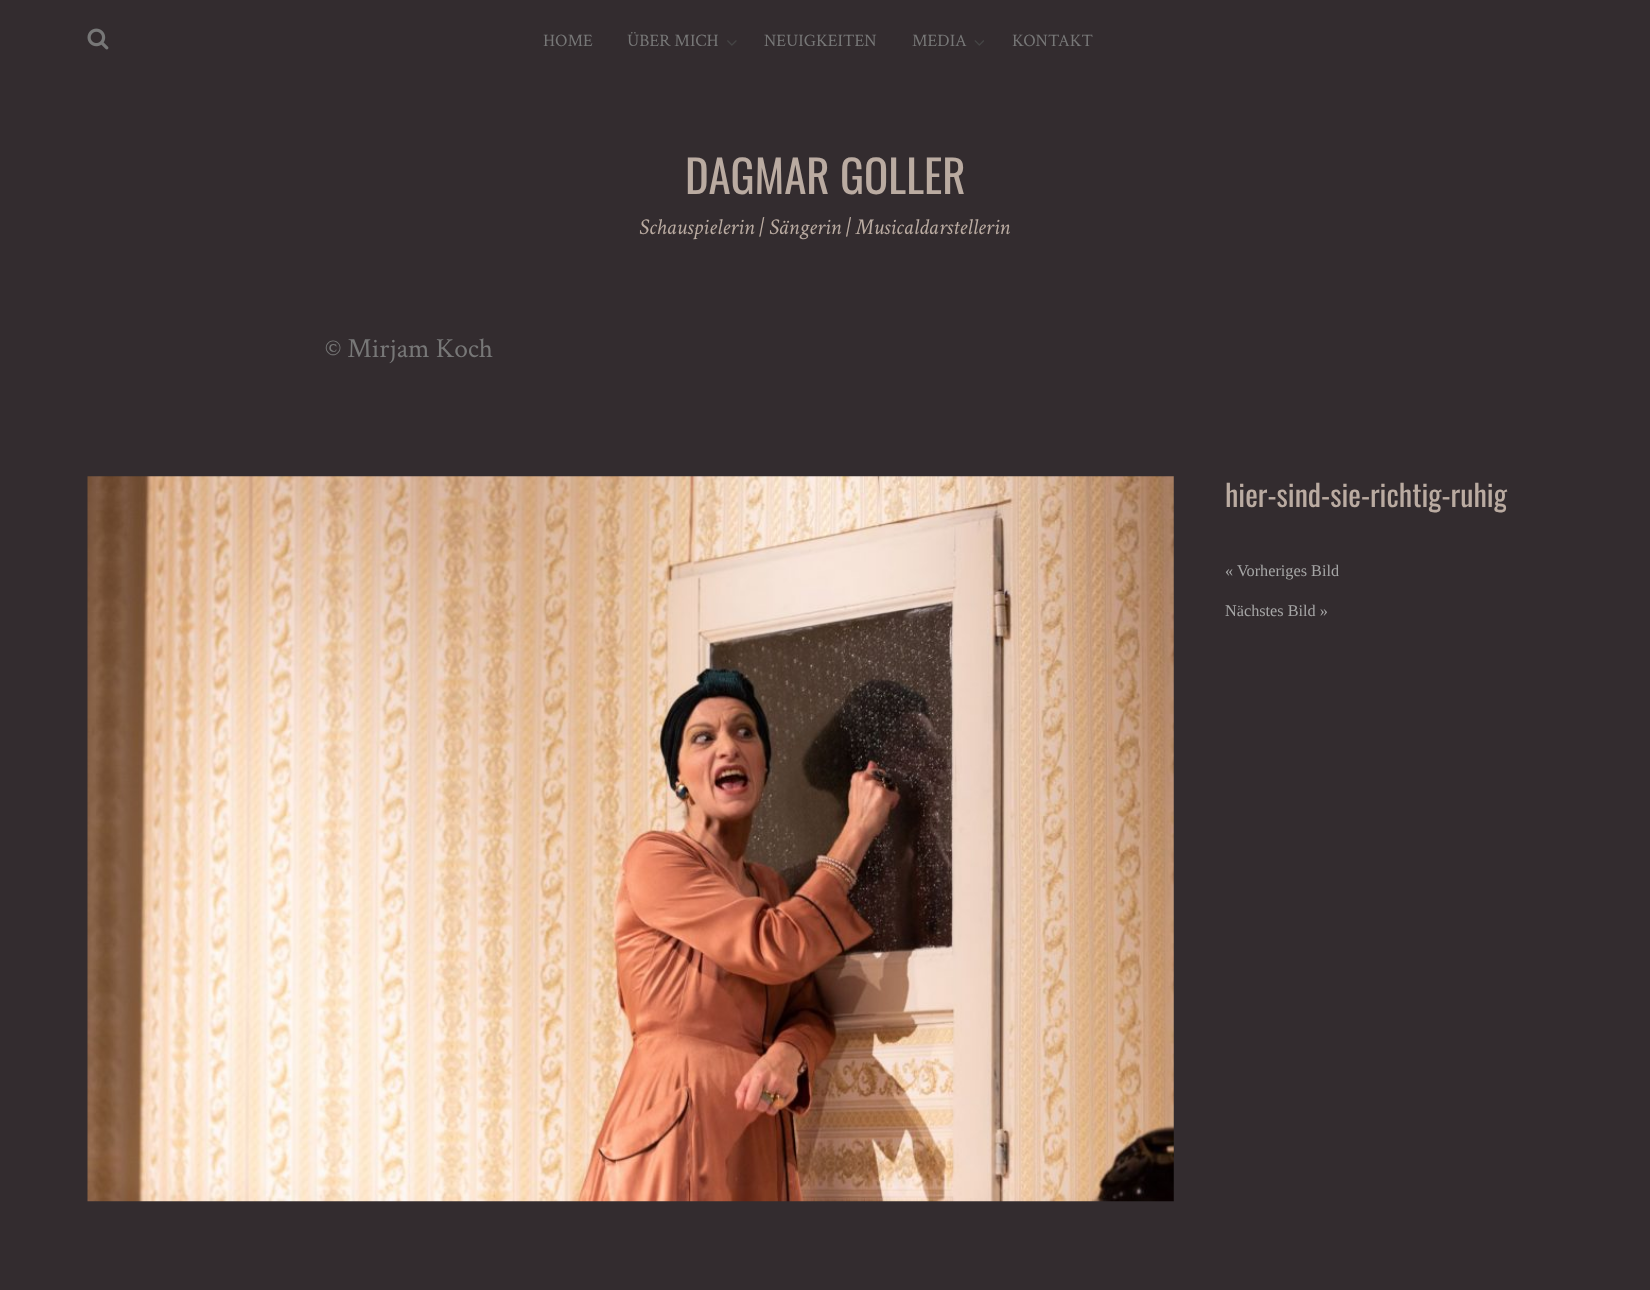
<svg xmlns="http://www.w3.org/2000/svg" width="1650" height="1290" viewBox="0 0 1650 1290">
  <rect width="100%" height="100%" fill="rgb(51,44,47)"/>
  <image x="87" y="28" width="22" height="22" href="pic1.png"/>
  <g font-family="Crimson Text" font-size="17.5" fill="rgb(119,119,119)">
    <text x="543" y="46">HOME</text>
    <text x="627" y="46">ÜBER MICH</text>
  </g>
  <image x="727" y="40" width="10" height="6" href="pic2.png"/>
  <g font-family="Crimson Text" font-size="17.5" fill="rgb(119,119,119)">
    <text x="764" y="46">NEUIGKEITEN</text>
    <text x="912" y="46">MEDIA</text>
  </g>
  <image x="974" y="40" width="10" height="6" href="pic3.png"/>
  <text x="1012" y="46" font-family="Crimson Text" font-size="17.5" fill="rgb(119,119,119)">KONTAKT</text>
  <text x="685" y="194" font-family="Oswald" font-size="45" fill="rgb(186,171,161)">DAGMAR GOLLER</text>
  <text x="639" y="234" font-family="Crimson Text" font-size="22.5" font-style="italic" fill="rgb(186,171,161)">Schauspielerin | Sängerin | Musicaldarstellerin</text>
  <text x="325" y="357" font-family="Crimson Text" font-size="27.5" fill="rgb(119,119,119)">© Mirjam Koch</text>
  <image x="87" y="476" width="1087" height="726" href="pic4.png"/>
  <text x="1225" y="507" font-family="Oswald" font-size="30" fill="rgb(186,171,161)">hier-sind-sie-richtig-ruhig</text>
  <g font-family="Liberation Serif" font-size="16.25" fill="rgb(165,165,165)">
    <text x="1225" y="576">« Vorheriges Bild</text>
    <text x="1225" y="616">Nächstes Bild »</text>
  </g>
</svg>
